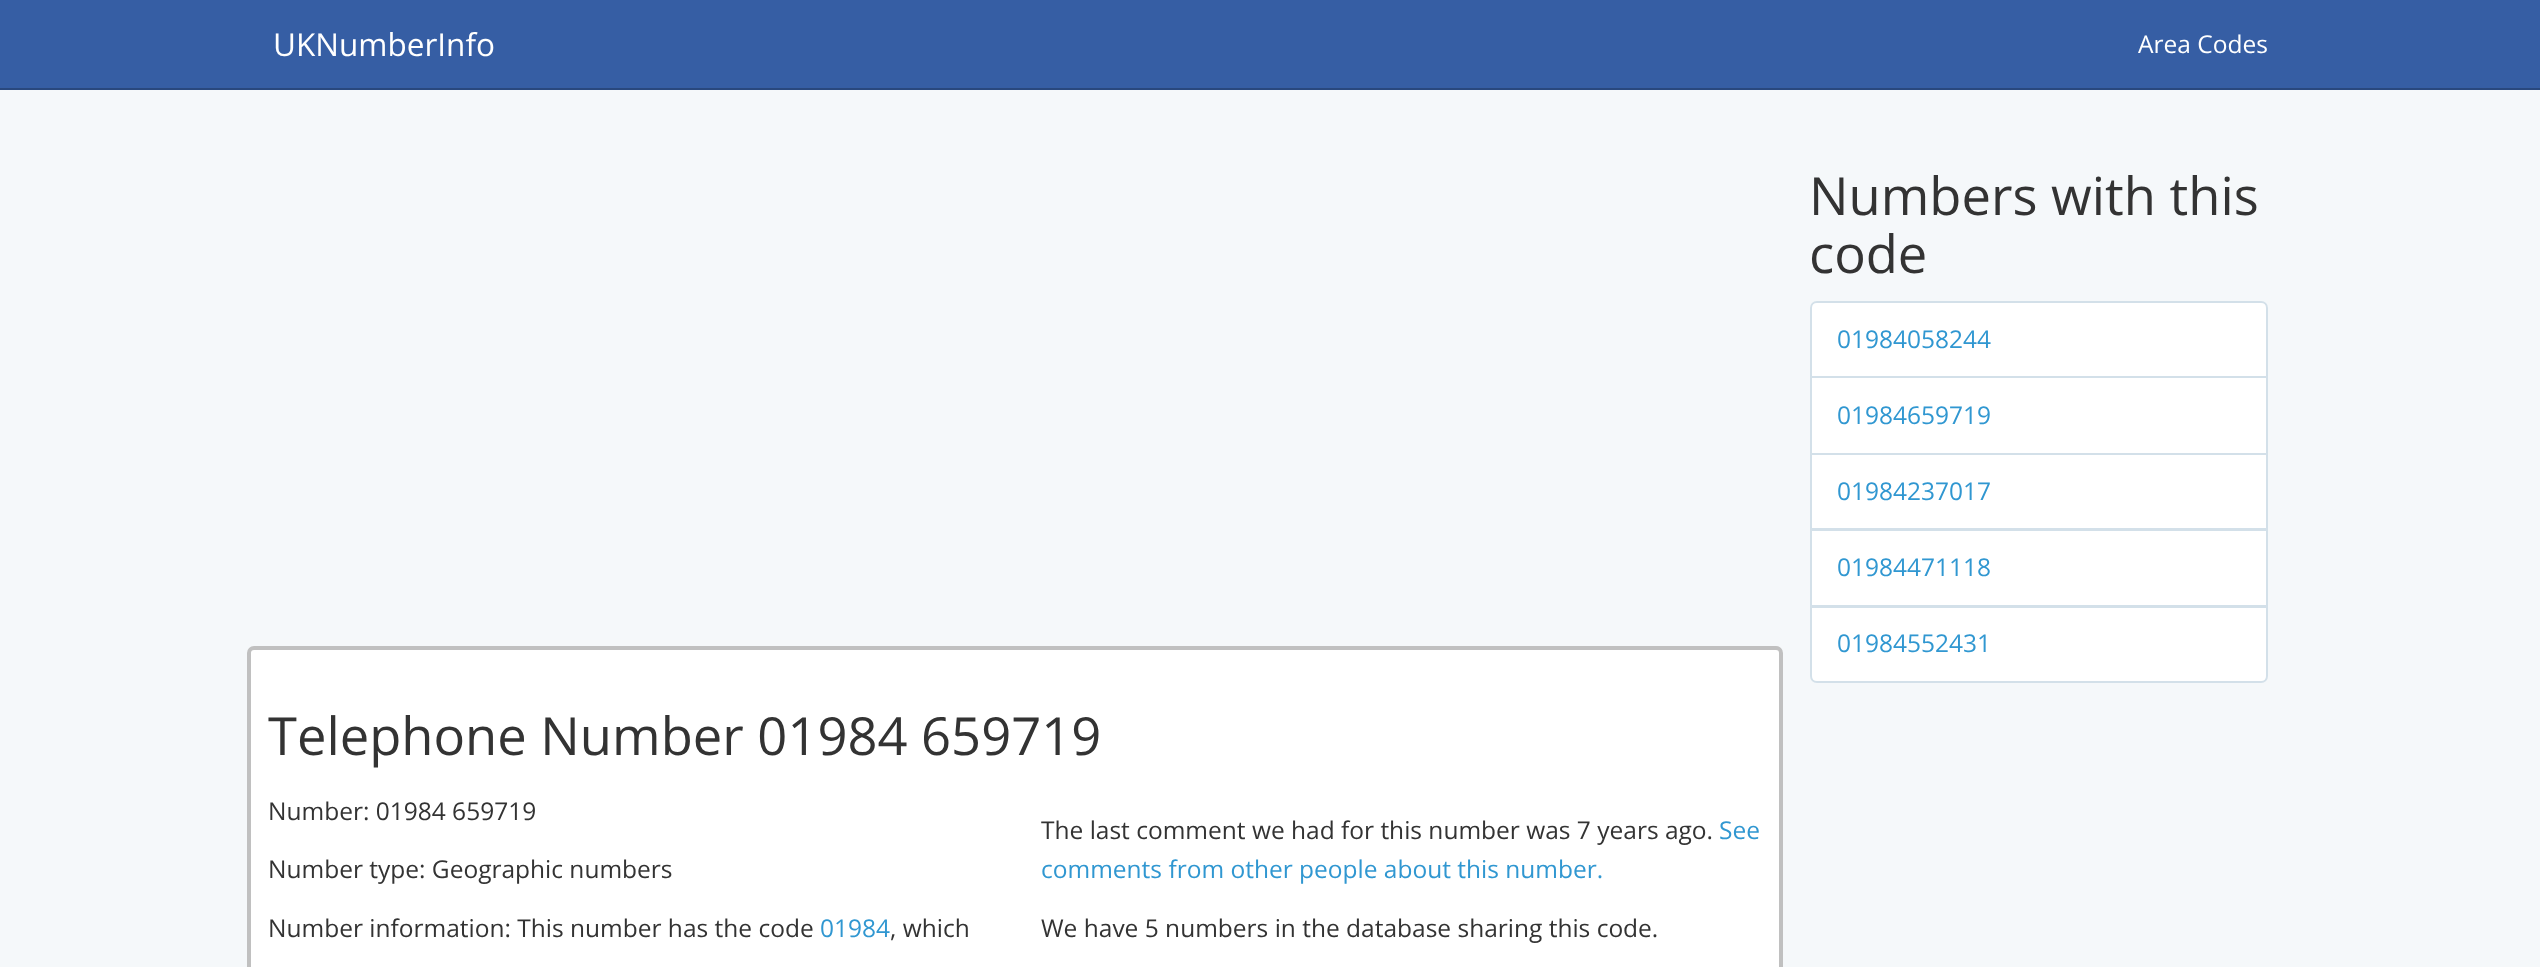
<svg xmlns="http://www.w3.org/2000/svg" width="2540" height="967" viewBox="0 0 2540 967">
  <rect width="100%" height="100%" fill="rgb(245,248,250)"/>
  <rect x="0" y="0" width="2540" height="88" fill="rgb(54,94,164)"/>
  <rect x="0" y="88" width="2540" height="2" fill="rgb(41,72,126)"/>
  <text x="273" y="56" font-family="Open Sans" font-size="31.5" fill="rgb(255,255,255)">UKNumberInfo</text>
  <text x="2138" y="53" font-family="Open Sans" font-size="24.5" fill="rgb(255,255,255)">Area Codes</text>
  <g font-family="Open Sans" font-size="52.5" fill="rgb(51,51,51)">
    <text>
      <tspan x="1809" y="215">Numbers with this</tspan>
      <tspan x="1809" y="273">code</tspan>
    </text>
  </g>
  <path d="M1817 302H2261C2264.5 302 2267 304.5 2267 308V377H1811V308C1811 304.5 1813.5 302 1817 302Z" fill="rgb(255,255,255)" stroke="rgb(211,224,233)" stroke-width="2"/>
  <text x="1837" y="348" font-family="Open Sans" font-size="24.5" fill="rgb(48,151,209)">01984058244</text>
  <rect x="1811" y="377" width="456" height="77" fill="rgb(255,255,255)" stroke="rgb(211,224,233)" stroke-width="2"/>
  <text x="1837" y="424" font-family="Open Sans" font-size="24.5" fill="rgb(48,151,209)">01984659719</text>
  <rect x="1811" y="454" width="456" height="75" fill="rgb(255,255,255)" stroke="rgb(211,224,233)" stroke-width="2"/>
  <text x="1837" y="500" font-family="Open Sans" font-size="24.5" fill="rgb(48,151,209)">01984237017</text>
  <rect x="1811" y="530" width="456" height="76" fill="rgb(255,255,255)" stroke="rgb(211,224,233)" stroke-width="2"/>
  <text x="1837" y="576" font-family="Open Sans" font-size="24.5" fill="rgb(48,151,209)">01984471118</text>
  <path d="M1811 607H2267V676C2267 679.5 2264.5 682 2261 682H1817C1813.5 682 1811 679.5 1811 676Z" fill="rgb(255,255,255)" stroke="rgb(211,224,233)" stroke-width="2"/>
  <text x="1837" y="652" font-family="Open Sans" font-size="24.5" fill="rgb(48,151,209)">01984552431</text>
  <rect x="249" y="648" width="1532" height="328" rx="5" fill="rgb(255,255,255)" stroke="rgb(192,192,192)" stroke-width="4"/>
  <text x="268" y="755" font-family="Open Sans" font-size="52.5" fill="rgb(51,51,51)">Telephone Number 01984 659719</text>
  <g font-family="Open Sans" font-size="24.5" fill="rgb(51,51,51)">
    <text x="268" y="820">Number: 01984 659719</text>
    <text x="268" y="878">Number type: Geographic numbers</text>
    <text x="268" y="937">Number information: This number has the code</text>
  </g>
  <text x="820" y="937" font-family="Open Sans" font-size="24.5" fill="rgb(48,151,209)">01984</text>
  <g font-family="Open Sans" font-size="24.5" fill="rgb(51,51,51)">
    <text x="890" y="937">, which</text>
    <text x="1041" y="839">The last comment we had for this number was 7 years ago.</text>
  </g>
  <g font-family="Open Sans" font-size="24.5" fill="rgb(48,151,209)">
    <text x="1719" y="839">See</text>
    <text x="1041" y="878">comments from other people about this number.</text>
  </g>
  <text x="1041" y="937" font-family="Open Sans" font-size="24.5" fill="rgb(51,51,51)">We have 5 numbers in the database sharing this code.</text>
</svg>
